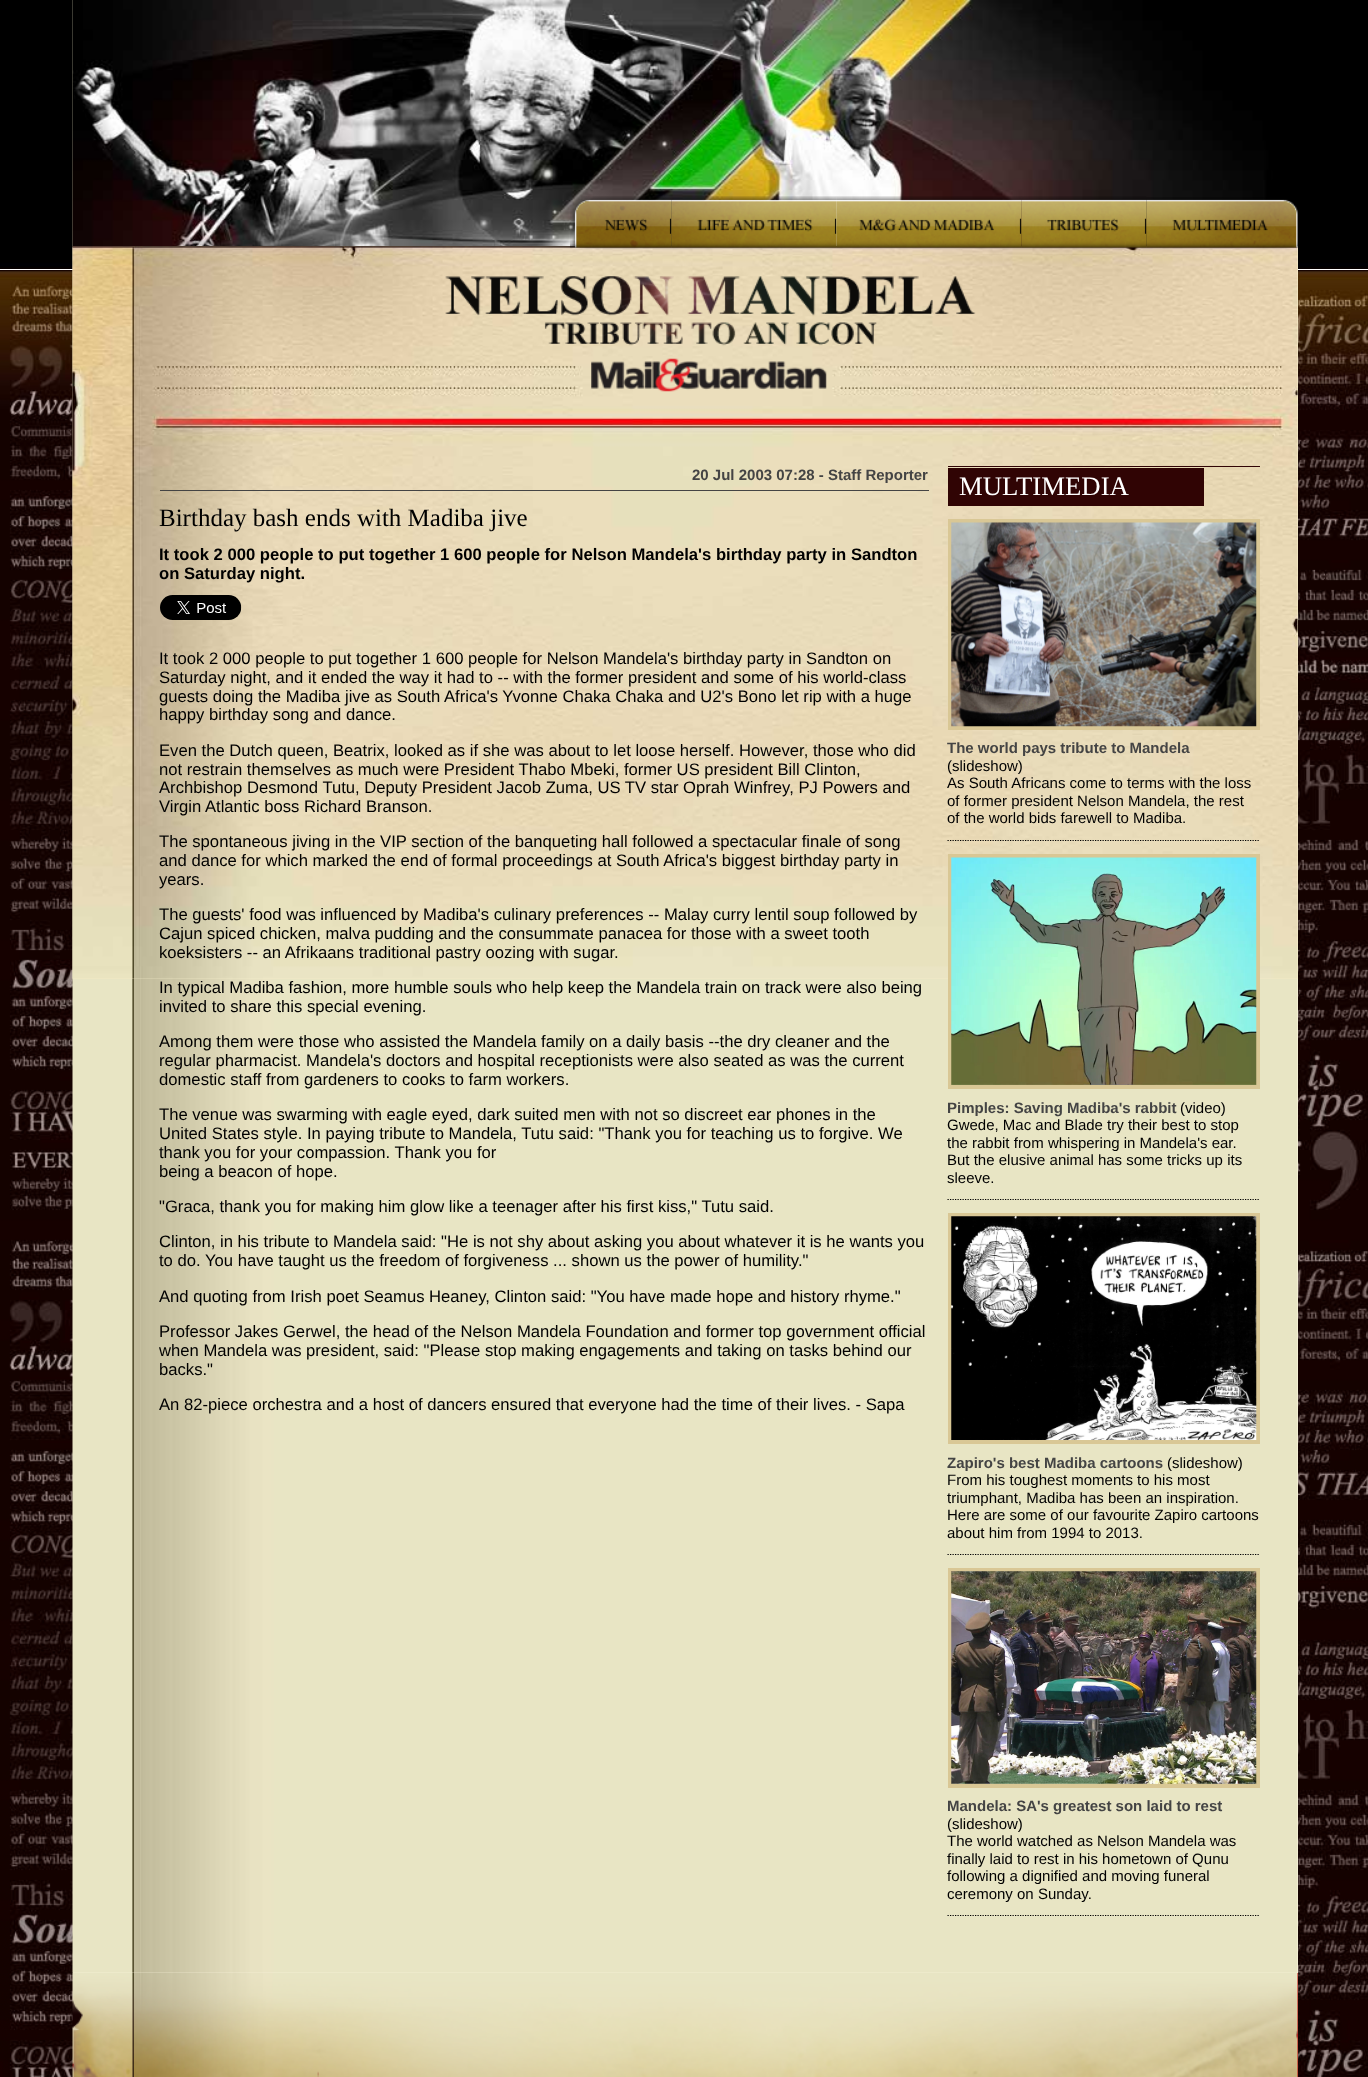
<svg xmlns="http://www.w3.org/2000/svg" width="1368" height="2077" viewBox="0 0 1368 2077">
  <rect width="100%" height="100%" fill="rgb(255,255,255)"/>
  <image x="0" y="0" width="1368" height="2077" href="pic1.png"/>
  <rect x="0" y="269" width="1368" height="1" fill="rgb(255,255,255)"/>
  <rect x="73" y="979" width="1225" height="994" fill="rgb(252,247,225)"/>
  <image x="72" y="0" width="1226" height="1973" href="pic2.png"/>
  <rect x="1297" y="0" width="1" height="246" fill="rgb(0,0,0)"/>
  <image x="72" y="0" width="1226" height="247" href="pic3.png"/>
  <rect x="73" y="246" width="1225" height="733" fill="rgb(248,240,205)"/>
  <image x="72" y="246" width="1226" height="733" href="pic9.png"/>
  <image x="570" y="196" width="102" height="53" href="pic4.png"/>
  <image x="671" y="196" width="166" height="53" href="pic5.png"/>
  <image x="836" y="196" width="186" height="53" href="pic6.png"/>
  <image x="1021" y="196" width="126" height="53" href="pic7.png"/>
  <image x="1146" y="197" width="152" height="52" href="pic8.png"/>
  <image x="445" y="276" width="531" height="70" href="pic10.png"/>
  <image x="591" y="358" width="236" height="34" href="pic11.png"/>
  <rect x="160" y="490" width="769" height="1" fill="rgb(68,68,68)"/>
  <text x="692" y="480" font-family="Liberation Sans" font-size="15" font-weight="bold" fill="rgb(68,68,68)">20 Jul 2003 07:28 - Staff Reporter</text>
  <text x="159" y="526" font-family="Liberation Serif" font-size="25" fill="rgb(0,0,0)">Birthday bash ends with Madiba jive</text>
  <g font-family="Liberation Sans" font-size="16.65" font-weight="bold" fill="rgb(0,0,0)">
    <text>
      <tspan x="159" y="560">It took 2 000 people to put together 1 600 people for Nelson Mandela's birthday party in Sandton</tspan>
      <tspan x="159" y="579">on Saturday night.</tspan>
    </text>
  </g>
  <image x="160" y="595" width="82" height="25" href="pic12.png"/>
  <g font-family="Liberation Sans" font-size="16.65" fill="rgb(0,0,0)">
    <text>
      <tspan x="159" y="664">It took 2 000 people to put together 1 600 people for Nelson Mandela's birthday party in Sandton on</tspan>
      <tspan x="159" y="683">Saturday night, and it ended the way it had to -- with the former president and some of his world-class</tspan>
      <tspan x="159" y="702">guests doing the Madiba jive as South Africa's Yvonne Chaka Chaka and U2's Bono let rip with a huge</tspan>
      <tspan x="159" y="720">happy birthday song and dance.</tspan>
    </text>
    <text>
      <tspan x="159" y="756">Even the Dutch queen, Beatrix, looked as if she was about to let loose herself. However, those who did</tspan>
      <tspan x="159" y="775">not restrain themselves as much were President Thabo Mbeki, former US president Bill Clinton,</tspan>
      <tspan x="159" y="793">Archbishop Desmond Tutu, Deputy President Jacob Zuma, US TV star Oprah Winfrey, PJ Powers and</tspan>
      <tspan x="159" y="812">Virgin Atlantic boss Richard Branson.</tspan>
    </text>
    <text>
      <tspan x="159" y="847">The spontaneous jiving in the VIP section of the banqueting hall followed a spectacular finale of song</tspan>
      <tspan x="159" y="866">and dance for which marked the end of formal proceedings at South Africa's biggest birthday party in</tspan>
      <tspan x="159" y="885">years.</tspan>
    </text>
    <text>
      <tspan x="159" y="920">The guests' food was influenced by Madiba's culinary preferences -- Malay curry lentil soup followed by</tspan>
      <tspan x="159" y="939">Cajun spiced chicken, malva pudding and the consummate panacea for those with a sweet tooth</tspan>
      <tspan x="159" y="958">koeksisters -- an Afrikaans traditional pastry oozing with sugar.</tspan>
    </text>
    <text>
      <tspan x="159" y="993">In typical Madiba fashion, more humble souls who help keep the Mandela train on track were also being</tspan>
      <tspan x="159" y="1012">invited to share this special evening.</tspan>
    </text>
    <text>
      <tspan x="159" y="1047">Among them were those who assisted the Mandela family on a daily basis --the dry cleaner and the</tspan>
      <tspan x="159" y="1066">regular pharmacist. Mandela's doctors and hospital receptionists were also seated as was the current</tspan>
      <tspan x="159" y="1085">domestic staff from gardeners to cooks to farm workers.</tspan>
    </text>
    <text>
      <tspan x="159" y="1120">The venue was swarming with eagle eyed, dark suited men with not so discreet ear phones in the</tspan>
      <tspan x="159" y="1139">United States style. In paying tribute to Mandela, Tutu said: "Thank you for teaching us to forgive. We</tspan>
      <tspan x="159" y="1158">thank you for your compassion. Thank you for</tspan>
      <tspan x="159" y="1177">being a beacon of hope.</tspan>
    </text>
    <text x="159" y="1212">"Graca, thank you for making him glow like a teenager after his first kiss," Tutu said.</text>
    <text>
      <tspan x="159" y="1247">Clinton, in his tribute to Mandela said: "He is not shy about asking you about whatever it is he wants you</tspan>
      <tspan x="159" y="1266">to do. You have taught us the freedom of forgiveness ... shown us the power of humility."</tspan>
    </text>
    <text x="159" y="1302">And quoting from Irish poet Seamus Heaney, Clinton said: "You have made hope and history rhyme."</text>
    <text>
      <tspan x="159" y="1337">Professor Jakes Gerwel, the head of the Nelson Mandela Foundation and former top government official</tspan>
      <tspan x="159" y="1356">when Mandela was president, said: "Please stop making engagements and taking on tasks behind our</tspan>
      <tspan x="159" y="1375">backs."</tspan>
    </text>
    <text x="159" y="1410">An 82-piece orchestra and a host of dancers ensured that everyone had the time of their lives. - Sapa</text>
  </g>
  <rect x="948" y="466" width="312" height="1" fill="rgb(48,4,4)"/>
  <rect x="948" y="468" width="256" height="38" fill="rgb(48,4,4)"/>
  <text x="959" y="495" font-family="Liberation Serif" font-size="26.75" fill="rgb(255,255,255)">MULTIMEDIA</text>
  <path d="M947.5 840.5H1260" fill="none" stroke="rgb(0,0,0)" stroke-width="1.2" stroke-dasharray="1.25 1.25"/>
  <rect x="950" y="521" width="308" height="207" fill="none" stroke="rgb(217,199,149)" stroke-width="4"/>
  <image x="951" y="522" width="306" height="205" href="pic13.png"/>
  <text x="947" y="753" font-family="Liberation Sans" font-size="15" font-weight="bold" fill="rgb(68,68,68)">The world pays tribute to Mandela</text>
  <g font-family="Liberation Sans" font-size="15" fill="rgb(0,0,0)">
    <text>
      <tspan x="947" y="771">(slideshow)</tspan>
      <tspan x="947" y="788">As South Africans come to terms with the loss</tspan>
      <tspan x="947" y="806">of former president Nelson Mandela, the rest</tspan>
      <tspan x="947" y="823">of the world bids farewell to Madiba.</tspan>
    </text>
  </g>
  <path d="M947.5 1199.5H1260" fill="none" stroke="rgb(0,0,0)" stroke-width="1.2" stroke-dasharray="1.25 1.25"/>
  <rect x="950" y="856" width="308" height="231" fill="none" stroke="rgb(217,199,149)" stroke-width="4"/>
  <image x="951" y="857" width="306" height="228" href="pic14.png"/>
  <text x="947" y="1113" font-family="Liberation Sans" font-size="15" font-weight="bold" fill="rgb(68,68,68)">Pimples: Saving Madiba's rabbit</text>
  <g font-family="Liberation Sans" font-size="15" fill="rgb(0,0,0)">
    <text x="1180" y="1113">(video)</text>
    <text>
      <tspan x="947" y="1130">Gwede, Mac and Blade try their best to stop</tspan>
      <tspan x="947" y="1148">the rabbit from whispering in Mandela's ear.</tspan>
      <tspan x="947" y="1165">But the elusive animal has some tricks up its</tspan>
      <tspan x="947" y="1183">sleeve.</tspan>
    </text>
  </g>
  <path d="M947.5 1554.5H1260" fill="none" stroke="rgb(0,0,0)" stroke-width="1.2" stroke-dasharray="1.25 1.25"/>
  <rect x="950" y="1215" width="308" height="227" fill="none" stroke="rgb(217,199,149)" stroke-width="4"/>
  <image x="951" y="1216" width="306" height="224" href="pic15.png"/>
  <text x="947" y="1468" font-family="Liberation Sans" font-size="15" font-weight="bold" fill="rgb(68,68,68)">Zapiro's best Madiba cartoons</text>
  <g font-family="Liberation Sans" font-size="15" fill="rgb(0,0,0)">
    <text x="1167" y="1468">(slideshow)</text>
    <text>
      <tspan x="947" y="1485">From his toughest moments to his most</tspan>
      <tspan x="947" y="1503">triumphant, Madiba has been an inspiration.</tspan>
      <tspan x="947" y="1520">Here are some of our favourite Zapiro cartoons</tspan>
      <tspan x="947" y="1538">about him from 1994 to 2013.</tspan>
    </text>
  </g>
  <path d="M947.5 1915.5H1260" fill="none" stroke="rgb(0,0,0)" stroke-width="1.2" stroke-dasharray="1.25 1.25"/>
  <rect x="950" y="1570" width="308" height="216" fill="none" stroke="rgb(217,199,149)" stroke-width="4"/>
  <image x="951" y="1571" width="306" height="213" href="pic16.png"/>
  <text x="947" y="1811" font-family="Liberation Sans" font-size="15" font-weight="bold" fill="rgb(68,68,68)">Mandela: SA's greatest son laid to rest</text>
  <g font-family="Liberation Sans" font-size="15" fill="rgb(0,0,0)">
    <text>
      <tspan x="947" y="1829">(slideshow)</tspan>
      <tspan x="947" y="1846">The world watched as Nelson Mandela was</tspan>
      <tspan x="947" y="1864">finally laid to rest in his hometown of Qunu</tspan>
      <tspan x="947" y="1881">following a dignified and moving funeral</tspan>
      <tspan x="947" y="1899">ceremony on Sunday.</tspan>
    </text>
  </g>
  <rect x="1297" y="1973" width="1" height="104" fill="rgb(196,8,8)"/>
  <image x="72" y="1972" width="1226" height="105" href="pic17.png"/>
</svg>
